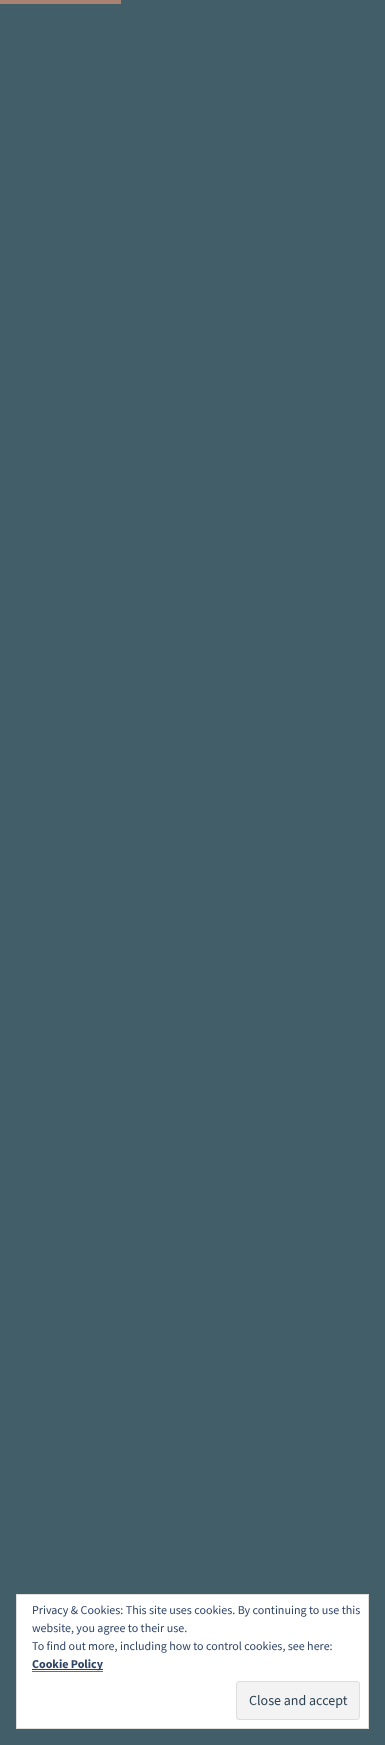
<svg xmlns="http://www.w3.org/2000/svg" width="385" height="1745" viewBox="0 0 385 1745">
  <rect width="100%" height="100%" fill="rgb(66,94,105)"/>
  <rect x="0" y="0" width="121" height="4" fill="rgb(169,130,115)"/>
  <rect x="16.5" y="1594.5" width="352" height="134" fill="rgb(255,255,255)" stroke="rgb(222,222,222)"/>
  <g font-family="Source Sans Pro" font-size="12" fill="rgb(46,68,103)">
    <text>
      <tspan x="32" y="1614">Privacy &amp; Cookies: This site uses cookies. By continuing to use this</tspan>
      <tspan x="32" y="1632">website, you agree to their use.</tspan>
      <tspan x="32" y="1650">To find out more, including how to control cookies, see here:</tspan>
    </text>
  </g>
  <rect x="32" y="1669" width="71" height="1" fill="rgb(46,68,103)"/>
  <text x="32" y="1668" font-family="Source Sans Pro" font-size="12" font-weight="bold" fill="rgb(46,68,103)">Cookie Policy</text>
  <rect x="32" y="1671" width="71" height="1" fill="rgb(82,117,131)"/>
  <rect x="236.5" y="1681.5" width="123" height="38" rx="2.5" fill="rgb(243,243,243)" stroke="rgb(222,222,222)"/>
  <text x="249" y="1705" font-family="Source Sans Pro" font-size="14" fill="rgb(46,68,83)">Close and accept</text>
</svg>
